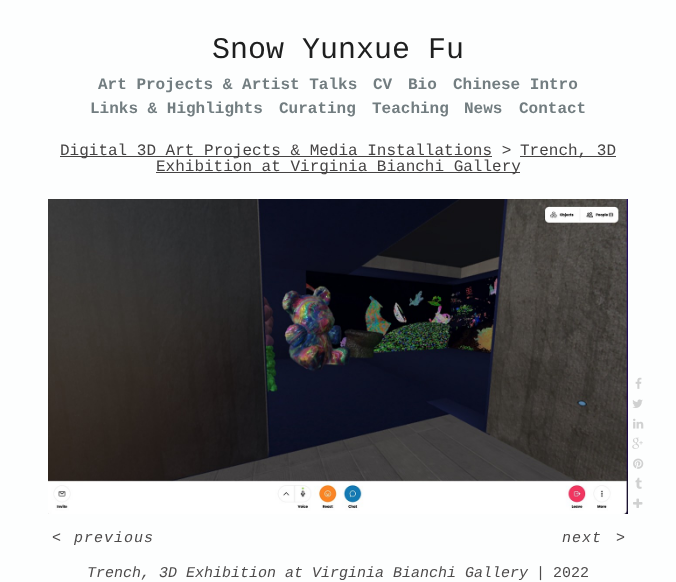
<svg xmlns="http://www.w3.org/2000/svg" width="676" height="582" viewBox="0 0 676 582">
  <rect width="100%" height="100%" fill="rgb(253,254,254)"/>
  <text x="212" y="58" font-family="Liberation Mono" font-size="30" fill="rgb(30,31,31)">Snow Yunxue Fu</text>
  <g font-family="Liberation Mono" font-size="16" font-weight="bold" fill="rgb(114,125,128)">
    <text x="98" y="89">Art Projects &amp; Artist Talks</text>
    <text x="373" y="89">CV</text>
    <text x="408" y="89">Bio</text>
    <text x="453" y="89">Chinese Intro</text>
    <text x="90" y="113">Links &amp; Highlights</text>
    <text x="279" y="113">Curating</text>
    <text x="372" y="113">Teaching</text>
    <text x="464" y="113">News</text>
    <text x="519" y="113">Contact</text>
  </g>
  <rect x="60" y="156" width="432" height="1" fill="rgb(69,67,67)"/>
  <text x="60" y="155" font-family="Liberation Mono" font-size="16" fill="rgb(69,67,67)">Digital 3D Art Projects &amp; Media Installations &gt;</text>
  <rect x="520" y="156" width="96" height="1" fill="rgb(69,67,67)"/>
  <text x="520" y="155" font-family="Liberation Mono" font-size="16" fill="rgb(69,67,67)">Trench, 3D</text>
  <rect x="156" y="172" width="364" height="1" fill="rgb(69,67,67)"/>
  <text x="156" y="171" font-family="Liberation Mono" font-size="16" fill="rgb(69,67,67)">Exhibition at Virginia Bianchi Gallery</text>
  <image x="48" y="199" width="580" height="315" href="pic1.png"/>
  <image x="635" y="377" width="7" height="12" href="pic2.png"/>
  <image x="632" y="399" width="11" height="9" href="pic3.png"/>
  <image x="633" y="418" width="11" height="11" href="pic4.png"/>
  <image x="632" y="437" width="11" height="12" href="pic5.png"/>
  <image x="633" y="458" width="11" height="11" href="pic6.png"/>
  <image x="635" y="477" width="7" height="12" href="pic7.png"/>
  <image x="633" y="498" width="10" height="10" href="pic8.png"/>
  <g font-family="Liberation Mono" font-size="15" font-style="italic" letter-spacing="1" fill="rgb(77,75,75)">
    <text x="52" y="542">&lt;</text>
    <text x="74" y="542">previous</text>
    <text x="562" y="542">next</text>
    <text x="616" y="542">&gt;</text>
  </g>
  <text x="87" y="577" font-family="Liberation Mono" font-size="15" font-style="italic" fill="rgb(77,75,75)">Trench, 3D Exhibition at Virginia Bianchi Gallery</text>
  <g font-family="Liberation Mono" font-size="15" fill="rgb(77,75,75)">
    <text x="536" y="577">|</text>
    <text x="553" y="577">2022</text>
  </g>
</svg>
